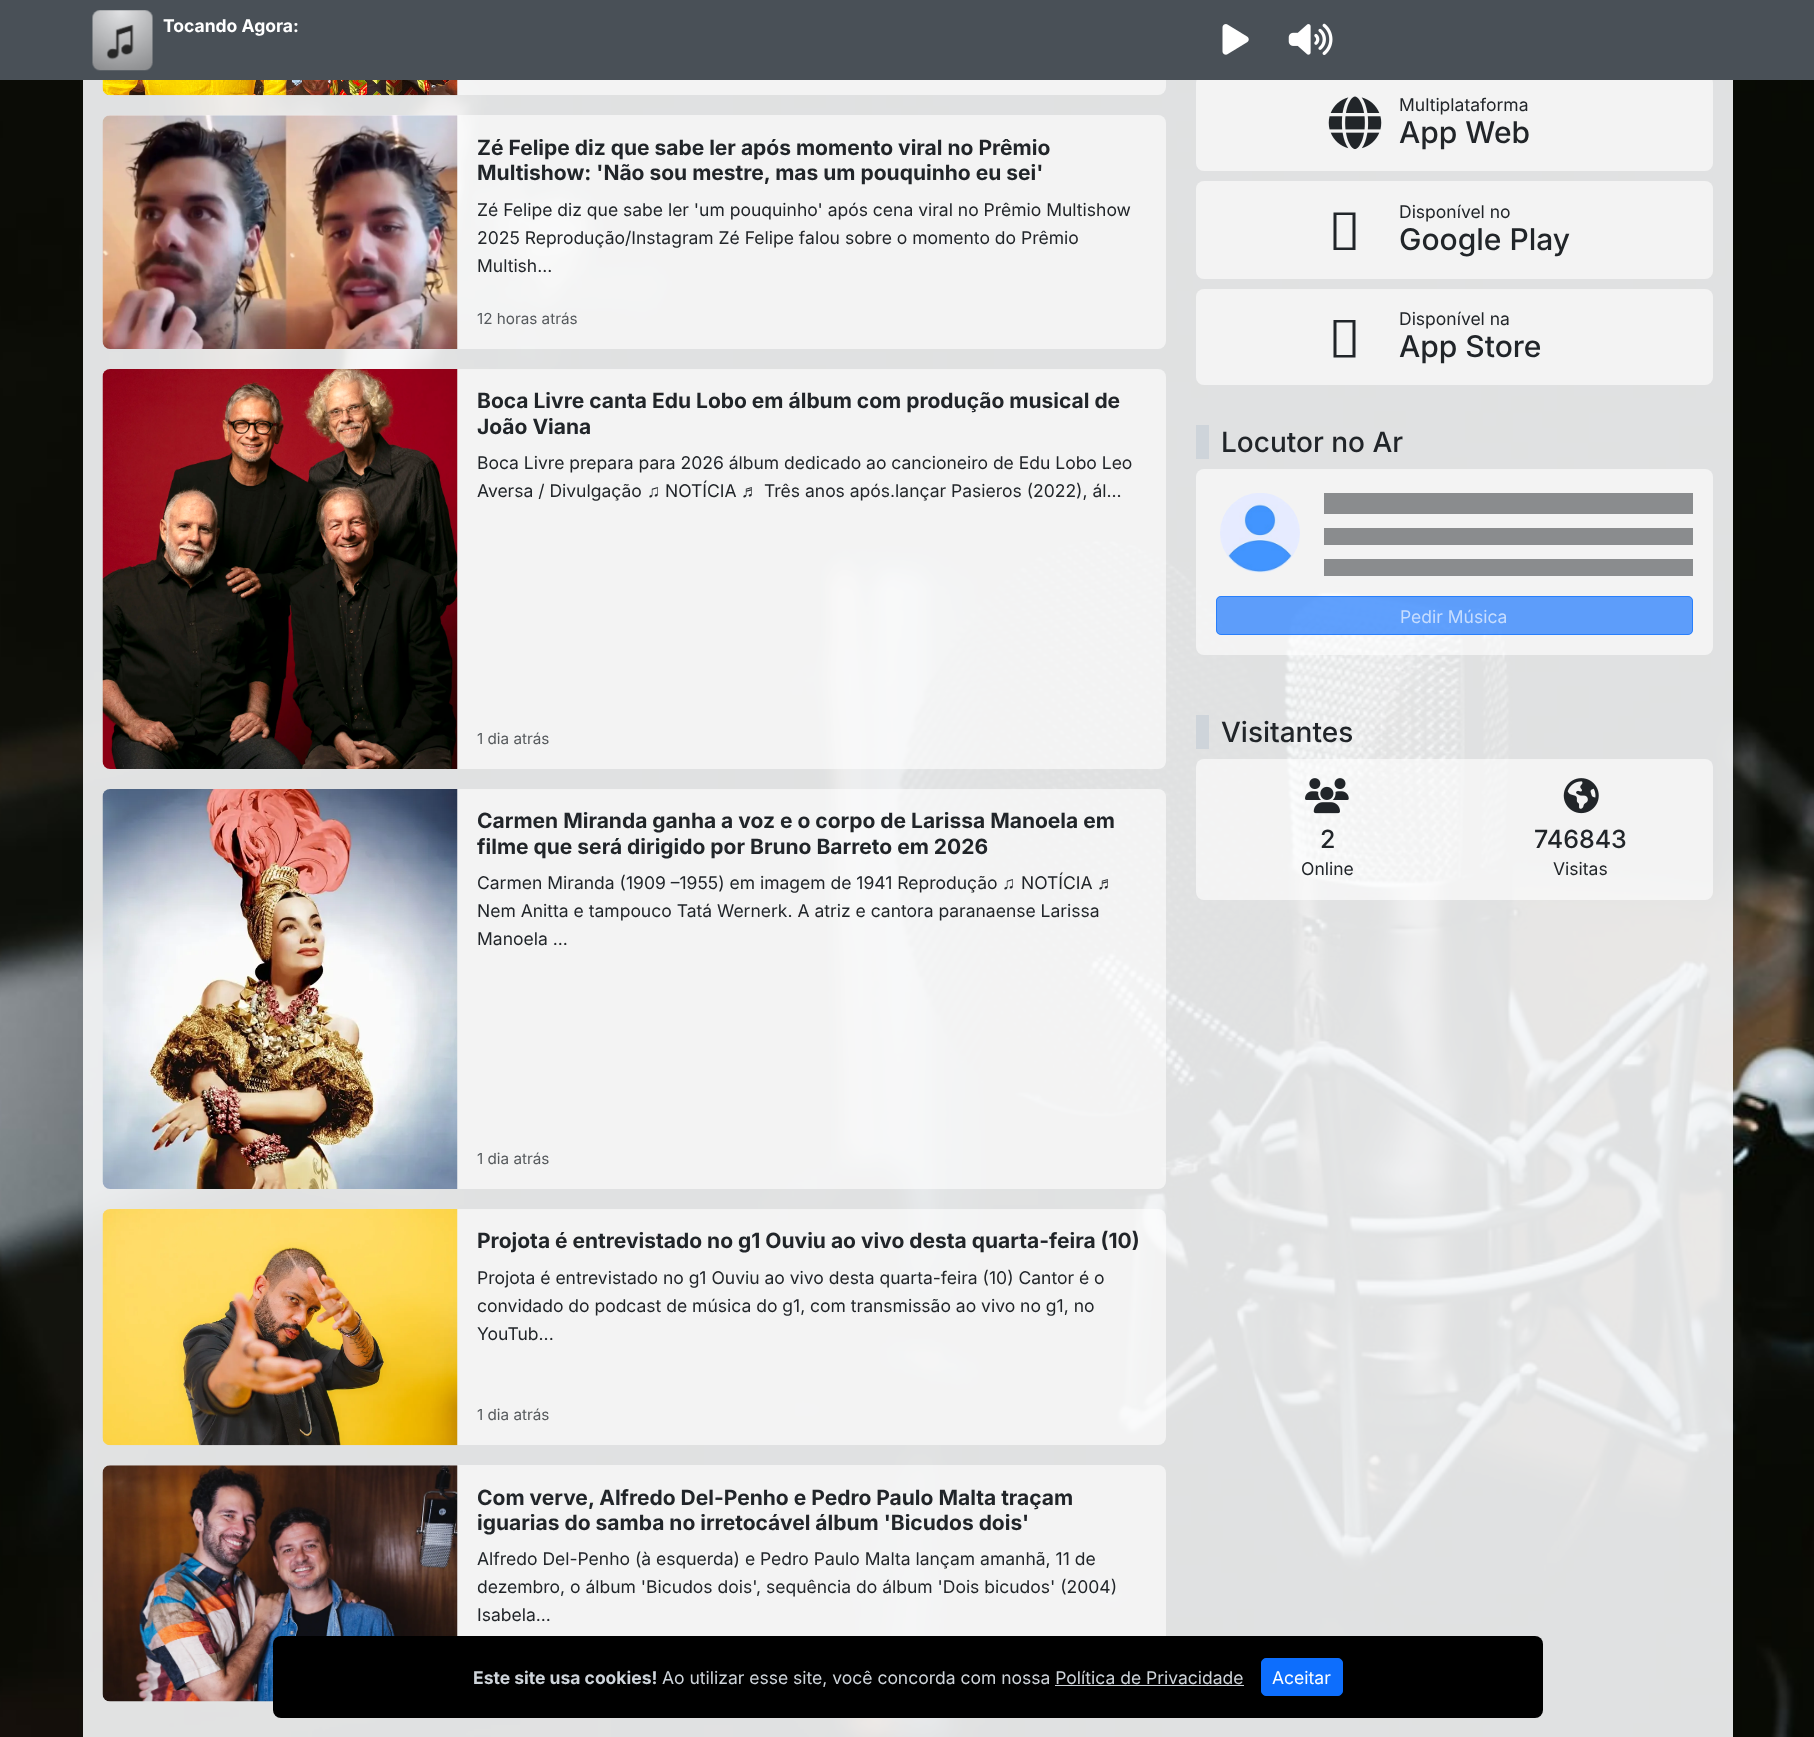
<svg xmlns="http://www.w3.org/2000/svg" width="1814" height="1737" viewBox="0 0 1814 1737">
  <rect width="100%" height="100%" fill="rgb(255,255,255)"/>
  <image x="0" y="80" width="1814" height="1657" href="pic1.png"/>
  <rect x="103" y="-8" width="1063" height="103" rx="8" fill="rgba(255,255,255,0.6)"/>
  <rect x="1196" y="75" width="517" height="96" rx="8" fill="rgb(243,243,243)"/>
  <rect x="0" y="0" width="1814" height="80" fill="rgb(73,80,87)"/>
  <image x="92" y="10" width="61" height="61" href="pic2.png"/>
  <text x="163" y="32" font-family="Inter" font-size="17.5" font-weight="bold" fill="rgb(255,255,255)">Tocando Agora:</text>
  <image x="1222" y="24" width="27" height="31" href="pic3.png"/>
  <image x="1288" y="23" width="45" height="32" href="pic4.png"/>
  <image x="102" y="80" width="356" height="16" href="pic5.png"/>
  <rect x="103" y="115" width="1063" height="234" rx="8" fill="rgba(255,255,255,0.6)"/>
  <image x="102" y="115" width="356" height="234" href="pic6.png"/>
  <g font-family="Inter" font-size="21" font-weight="bold" fill="rgb(33,37,41)">
    <text>
      <tspan x="477" y="155">Zé Felipe diz que sabe ler após momento viral no Prêmio</tspan>
      <tspan x="477" y="180">Multishow: 'Não sou mestre, mas um pouquinho eu sei'</tspan>
    </text>
  </g>
  <g font-family="Inter" font-size="17.5" fill="rgb(33,37,41)">
    <text>
      <tspan x="477" y="216">Zé Felipe diz que sabe ler 'um pouquinho' após cena viral no Prêmio Multishow</tspan>
      <tspan x="477" y="244">2025 Reprodução/Instagram Zé Felipe falou sobre o momento do Prêmio</tspan>
      <tspan x="477" y="272">Multish...</tspan>
    </text>
  </g>
  <text x="477" y="324" font-family="Inter" font-size="15.25" fill="rgb(85,89,92)">12 horas atrás</text>
  <rect x="103" y="369" width="1063" height="400" rx="8" fill="rgba(255,255,255,0.6)"/>
  <image x="102" y="369" width="356" height="400" href="pic7.png"/>
  <g font-family="Inter" font-size="21" font-weight="bold" fill="rgb(33,37,41)">
    <text>
      <tspan x="477" y="408">Boca Livre canta Edu Lobo em álbum com produção musical de</tspan>
      <tspan x="477" y="434">João Viana</tspan>
    </text>
  </g>
  <g font-family="Inter" font-size="17.5" fill="rgb(33,37,41)">
    <text>
      <tspan x="477" y="469">Boca Livre prepara para 2026 álbum dedicado ao cancioneiro de Edu Lobo Leo</tspan>
      <tspan x="477" y="497">Aversa / Divulgação</tspan>
    </text>
  </g>
  <text x="647" y="497" font-family="Liberation Sans" font-size="17.5" fill="rgb(33,37,41)">♫</text>
  <text x="665" y="497" font-family="Inter" font-size="17.5" fill="rgb(33,37,41)">NOTÍCIA</text>
  <text x="741" y="497" font-family="Liberation Sans" font-size="17.5" fill="rgb(33,37,41)">♬</text>
  <text x="764" y="497" font-family="Inter" font-size="17.5" fill="rgb(33,37,41)">Três anos após.lançar Pasieros (2022), ál...</text>
  <text x="477" y="744" font-family="Inter" font-size="15.25" fill="rgb(85,89,92)">1 dia atrás</text>
  <rect x="103" y="789" width="1063" height="400" rx="8" fill="rgba(255,255,255,0.6)"/>
  <image x="102" y="789" width="356" height="400" href="pic8.png"/>
  <g font-family="Inter" font-size="21" font-weight="bold" fill="rgb(33,37,41)">
    <text>
      <tspan x="477" y="828">Carmen Miranda ganha a voz e o corpo de Larissa Manoela em</tspan>
      <tspan x="477" y="854">filme que será dirigido por Bruno Barreto em 2026</tspan>
    </text>
  </g>
  <text x="477" y="889" font-family="Inter" font-size="17.5" fill="rgb(33,37,41)">Carmen Miranda (1909 –1955) em imagem de 1941 Reprodução</text>
  <text x="1002" y="889" font-family="Liberation Sans" font-size="17.5" fill="rgb(33,37,41)">♫</text>
  <text x="1021" y="889" font-family="Inter" font-size="17.5" fill="rgb(33,37,41)">NOTÍCIA</text>
  <text x="1097" y="889" font-family="Liberation Sans" font-size="17.5" fill="rgb(33,37,41)">♬</text>
  <g font-family="Inter" font-size="17.5" fill="rgb(33,37,41)">
    <text>
      <tspan x="477" y="917">Nem Anitta e tampouco Tatá Wernerk. A atriz e cantora paranaense Larissa</tspan>
      <tspan x="477" y="945">Manoela ...</tspan>
    </text>
  </g>
  <text x="477" y="1164" font-family="Inter" font-size="15.25" fill="rgb(85,89,92)">1 dia atrás</text>
  <rect x="103" y="1209" width="1063" height="236" rx="8" fill="rgba(255,255,255,0.6)"/>
  <image x="102" y="1209" width="356" height="237" href="pic9.png"/>
  <text x="477" y="1248" font-family="Inter" font-size="21" font-weight="bold" fill="rgb(33,37,41)">Projota é entrevistado no g1 Ouviu ao vivo desta quarta-feira (10)</text>
  <g font-family="Inter" font-size="17.5" fill="rgb(33,37,41)">
    <text>
      <tspan x="477" y="1284">Projota é entrevistado no g1 Ouviu ao vivo desta quarta-feira (10) Cantor é o</tspan>
      <tspan x="477" y="1312">convidado do podcast de música do g1, com transmissão ao vivo no g1, no</tspan>
      <tspan x="477" y="1340">YouTub...</tspan>
    </text>
  </g>
  <text x="477" y="1420" font-family="Inter" font-size="15.25" fill="rgb(85,89,92)">1 dia atrás</text>
  <rect x="103" y="1465" width="1063" height="236" rx="8" fill="rgba(255,255,255,0.6)"/>
  <image x="102" y="1465" width="356" height="237" href="pic10.png"/>
  <g font-family="Inter" font-size="21" font-weight="bold" fill="rgb(33,37,41)">
    <text>
      <tspan x="477" y="1505">Com verve, Alfredo Del-Penho e Pedro Paulo Malta traçam</tspan>
      <tspan x="477" y="1530">iguarias do samba no irretocável álbum 'Bicudos dois'</tspan>
    </text>
  </g>
  <g font-family="Inter" font-size="17.5" fill="rgb(33,37,41)">
    <text>
      <tspan x="477" y="1565">Alfredo Del-Penho (à esquerda) e Pedro Paulo Malta lançam amanhã, 11 de</tspan>
      <tspan x="477" y="1593">dezembro, o álbum 'Bicudos dois', sequência do álbum 'Dois bicudos' (2004)</tspan>
      <tspan x="477" y="1621">Isabela...</tspan>
    </text>
  </g>
  <image x="1328" y="96" width="54" height="54" href="pic11.png"/>
  <text x="1399" y="111" font-family="Inter" font-size="17.5" fill="rgb(33,37,41)">Multiplataforma</text>
  <text x="1399" y="143" font-family="Inter" font-size="30" font-weight="500" fill="rgb(33,37,41)">App Web</text>
  <rect x="1196" y="181" width="517" height="98" rx="8" fill="rgb(243,243,243)"/>
  <path d="M1333.5 250V212.5H1355.5V250ZM1336.5 247.5H1352.5V215H1336.5Z" fill="rgb(33,37,41)"/>
  <text x="1399" y="218" font-family="Inter" font-size="17.5" fill="rgb(33,37,41)">Disponível no</text>
  <text x="1399" y="250" font-family="Inter" font-size="30" font-weight="500" fill="rgb(33,37,41)">Google Play</text>
  <rect x="1196" y="289" width="517" height="96" rx="8" fill="rgb(243,243,243)"/>
  <path d="M1333.5 357.5V320H1355.5V357.5ZM1336.5 355H1352.5V322.5H1336.5Z" fill="rgb(33,37,41)"/>
  <text x="1399" y="325" font-family="Inter" font-size="17.5" fill="rgb(33,37,41)">Disponível na</text>
  <text x="1399" y="357" font-family="Inter" font-size="30" font-weight="500" fill="rgb(33,37,41)">App Store</text>
  <rect x="1196" y="425" width="13" height="34" fill="rgb(206,212,218)"/>
  <text x="1221" y="452" font-family="Inter" font-size="28" font-weight="500" fill="rgb(33,37,41)">Locutor no Ar</text>
  <rect x="1196" y="469" width="517" height="186" rx="8" fill="rgba(255,255,255,0.6)"/>
  <image x="1220" y="493" width="80" height="80" href="pic12.png"/>
  <rect x="1324" y="493" width="369" height="21" fill="rgb(138,140,142)"/>
  <rect x="1324" y="528" width="369" height="17" fill="rgb(138,140,142)"/>
  <rect x="1324" y="559" width="369" height="17" fill="rgb(138,140,142)"/>
  <rect x="1216" y="596" width="477" height="39" rx="5" fill="rgba(13,110,253,0.65)"/>
  <rect x="1216.5" y="596.5" width="476" height="38" rx="4.5" fill="none" stroke="rgba(13,110,253,0.65)"/>
  <text x="1400" y="623" font-family="Inter" font-size="17.5" fill="rgb(199,221,254)">Pedir Música</text>
  <rect x="1196" y="715" width="13" height="34" fill="rgb(206,212,218)"/>
  <text x="1221" y="742" font-family="Inter" font-size="28" font-weight="500" fill="rgb(33,37,41)">Visitantes</text>
  <rect x="1196" y="759" width="517" height="141" rx="8" fill="rgba(255,255,255,0.6)"/>
  <image x="1305" y="778" width="44" height="36" href="pic13.png"/>
  <text x="1320" y="848" font-family="Inter" font-size="25" font-weight="500" fill="rgb(33,37,41)">2</text>
  <text x="1301" y="875" font-family="Inter" font-size="17.5" fill="rgb(33,37,41)">Online</text>
  <image x="1563" y="778" width="36" height="36" href="pic14.png"/>
  <text x="1534" y="848" font-family="Inter" font-size="25" font-weight="500" fill="rgb(33,37,41)">746843</text>
  <text x="1553" y="875" font-family="Inter" font-size="17.5" fill="rgb(33,37,41)">Visitas</text>
  <rect x="273" y="1636" width="1270" height="82" rx="8" fill="rgb(0,0,0)"/>
  <text x="473" y="1684" font-family="Inter" font-size="17.5" font-weight="bold" fill="rgb(206,212,218)">Este site usa cookies!</text>
  <text x="662" y="1684" font-family="Inter" font-size="17.5" fill="rgb(206,212,218)">Ao utilizar esse site, você concorda com nossa Política de Privacidade</text>
  <rect x="1261.5" y="1658.5" width="81" height="37" rx="4.5" fill="rgb(13,110,253)" stroke="rgb(13,110,253)"/>
  <text x="1272" y="1684" font-family="Inter" font-size="17.5" fill="rgb(255,255,255)">Aceitar</text>
  <rect x="1055" y="1685" width="189" height="1" fill="rgb(206,212,218)"/>
</svg>
